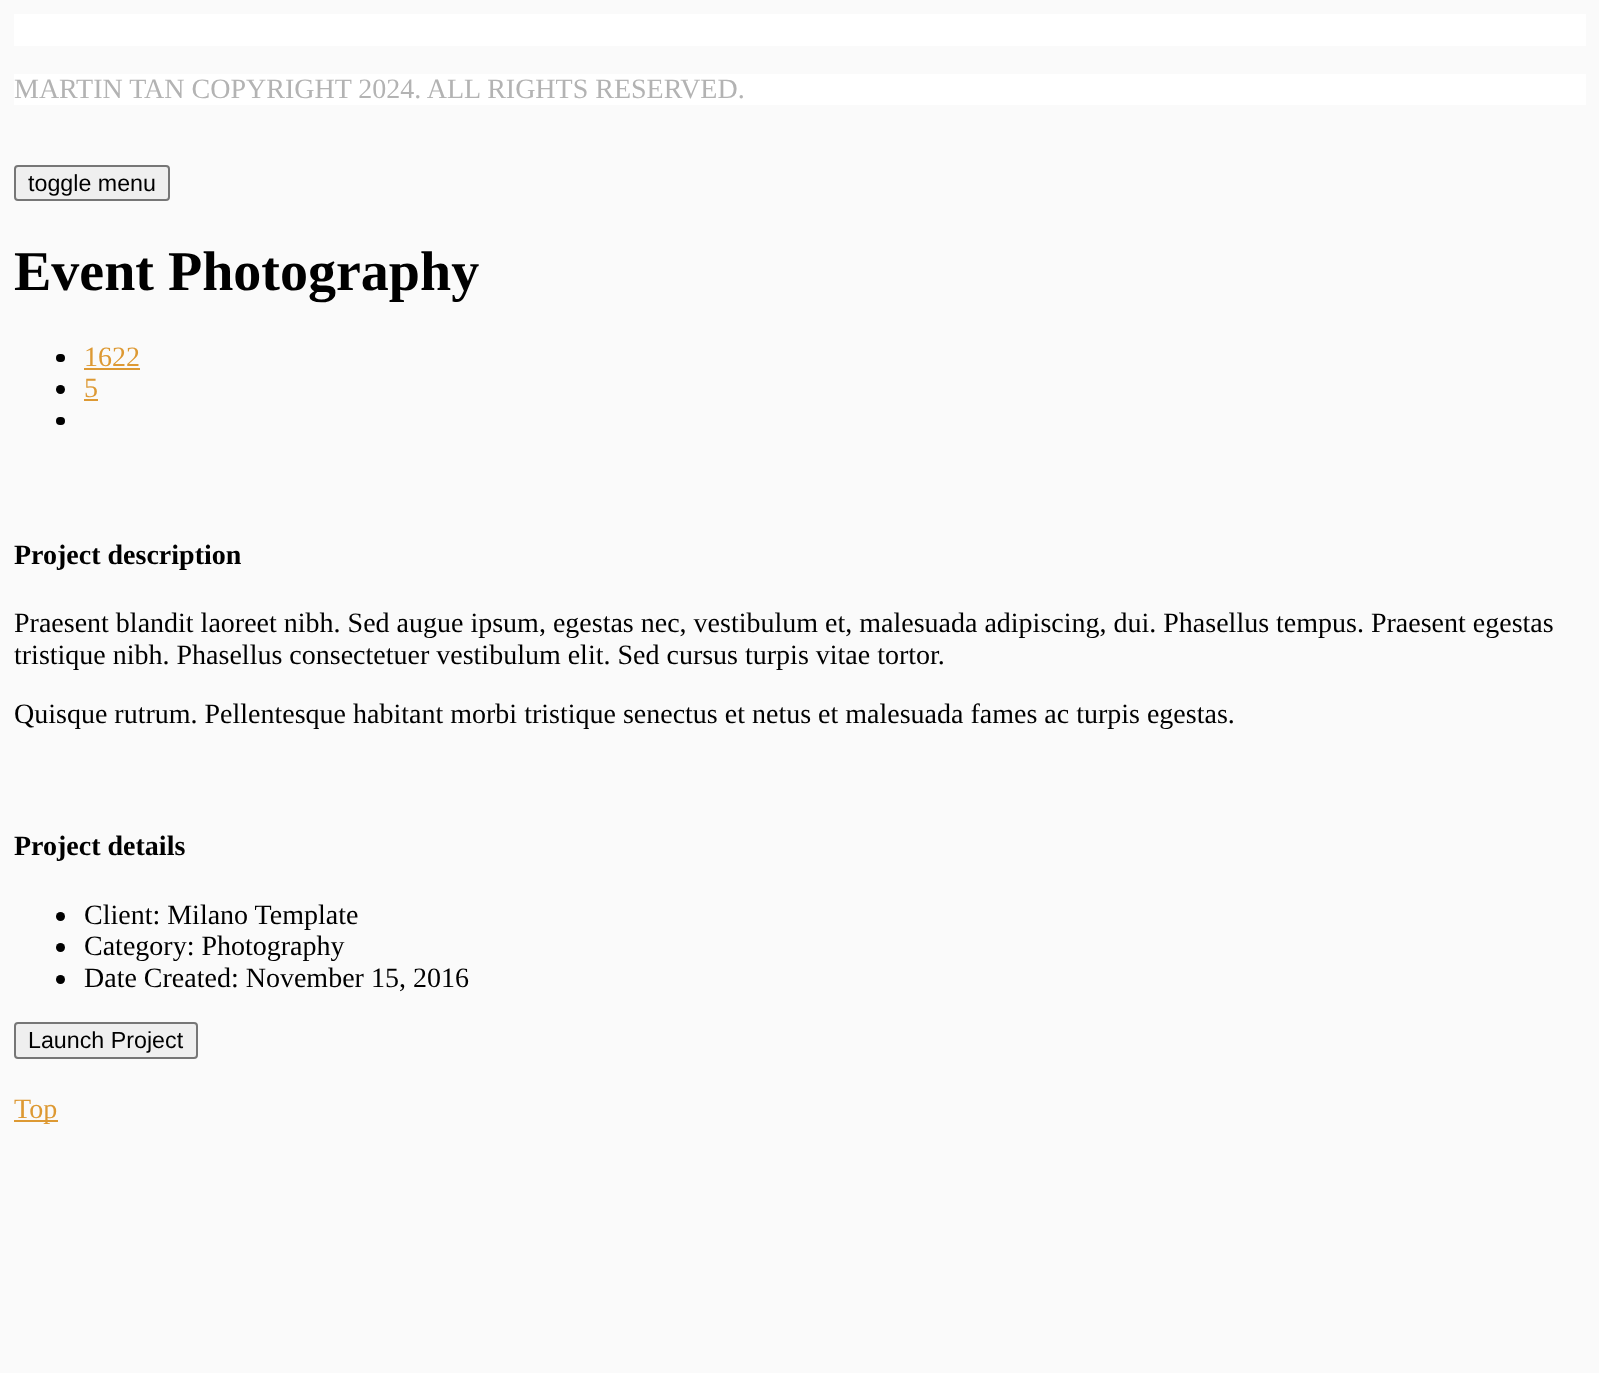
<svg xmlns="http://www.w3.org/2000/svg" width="1599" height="1373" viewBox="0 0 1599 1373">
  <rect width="100%" height="100%" fill="rgb(250,250,250)"/>
  <rect x="14" y="14" width="1572" height="32" fill="rgb(255,255,255)"/>
  <rect x="14" y="74" width="1572" height="31" fill="rgb(255,255,255)"/>
  <text x="14" y="98" font-family="Liberation Serif" font-size="28" fill="rgb(179,179,179)">MARTIN TAN COPYRIGHT 2024. ALL RIGHTS RESERVED.</text>
  <rect x="15" y="166" width="154" height="34" rx="3" fill="rgb(239,239,239)" stroke="rgb(118,118,118)" stroke-width="2"/>
  <text x="28" y="191" font-family="Liberation Sans" font-size="23.25" fill="rgb(0,0,0)">toggle menu</text>
  <text x="14" y="290" font-family="Liberation Serif" font-size="56" font-weight="bold" fill="rgb(0,0,0)">Event Photography</text>
  <rect x="56" y="354" width="9" height="8" rx="4" fill="rgb(0,0,0)"/>
  <text x="84" y="366" font-family="Liberation Serif" font-size="28" fill="rgb(221,153,51)">1622</text>
  <rect x="84" y="368" width="56" height="2" fill="rgb(221,153,51)"/>
  <circle cx="60.5" cy="389.5" r="4.5" fill="rgb(0,0,0)"/>
  <text x="84" y="397" font-family="Liberation Serif" font-size="28" fill="rgb(221,153,51)">5</text>
  <rect x="84" y="399" width="14" height="2" fill="rgb(221,153,51)"/>
  <rect x="56" y="417" width="9" height="8" rx="4" fill="rgb(0,0,0)"/>
  <text x="14" y="564" font-family="Liberation Serif" font-size="28" font-weight="bold" fill="rgb(0,0,0)">Project description</text>
  <g font-family="Liberation Serif" font-size="28" fill="rgb(0,0,0)">
    <text>
      <tspan x="14" y="632">Praesent blandit laoreet nibh. Sed augue ipsum, egestas nec, vestibulum et, malesuada adipiscing, dui. Phasellus tempus. Praesent egestas</tspan>
      <tspan x="14" y="664">tristique nibh. Phasellus consectetuer vestibulum elit. Sed cursus turpis vitae tortor.</tspan>
    </text>
    <text x="14" y="723">Quisque rutrum. Pellentesque habitant morbi tristique senectus et netus et malesuada fames ac turpis egestas.</text>
  </g>
  <text x="14" y="855" font-family="Liberation Serif" font-size="28" font-weight="bold" fill="rgb(0,0,0)">Project details</text>
  <circle cx="60.5" cy="916.5" r="4.5" fill="rgb(0,0,0)"/>
  <text x="84" y="924" font-family="Liberation Serif" font-size="28" fill="rgb(0,0,0)">Client: Milano Template</text>
  <circle cx="60.5" cy="947.5" r="4.5" fill="rgb(0,0,0)"/>
  <text x="84" y="955" font-family="Liberation Serif" font-size="28" fill="rgb(0,0,0)">Category: Photography</text>
  <circle cx="60.5" cy="979.5" r="4.5" fill="rgb(0,0,0)"/>
  <text x="84" y="987" font-family="Liberation Serif" font-size="28" fill="rgb(0,0,0)">Date Created: November 15, 2016</text>
  <rect x="15" y="1023" width="182" height="35" rx="3" fill="rgb(239,239,239)" stroke="rgb(118,118,118)" stroke-width="2"/>
  <text x="28" y="1048" font-family="Liberation Sans" font-size="23.25" fill="rgb(0,0,0)">Launch Project</text>
  <rect x="14" y="1120" width="44" height="2" fill="rgb(221,153,51)"/>
  <text x="14" y="1118" font-family="Liberation Serif" font-size="28" fill="rgb(221,153,51)">Top</text>
</svg>
